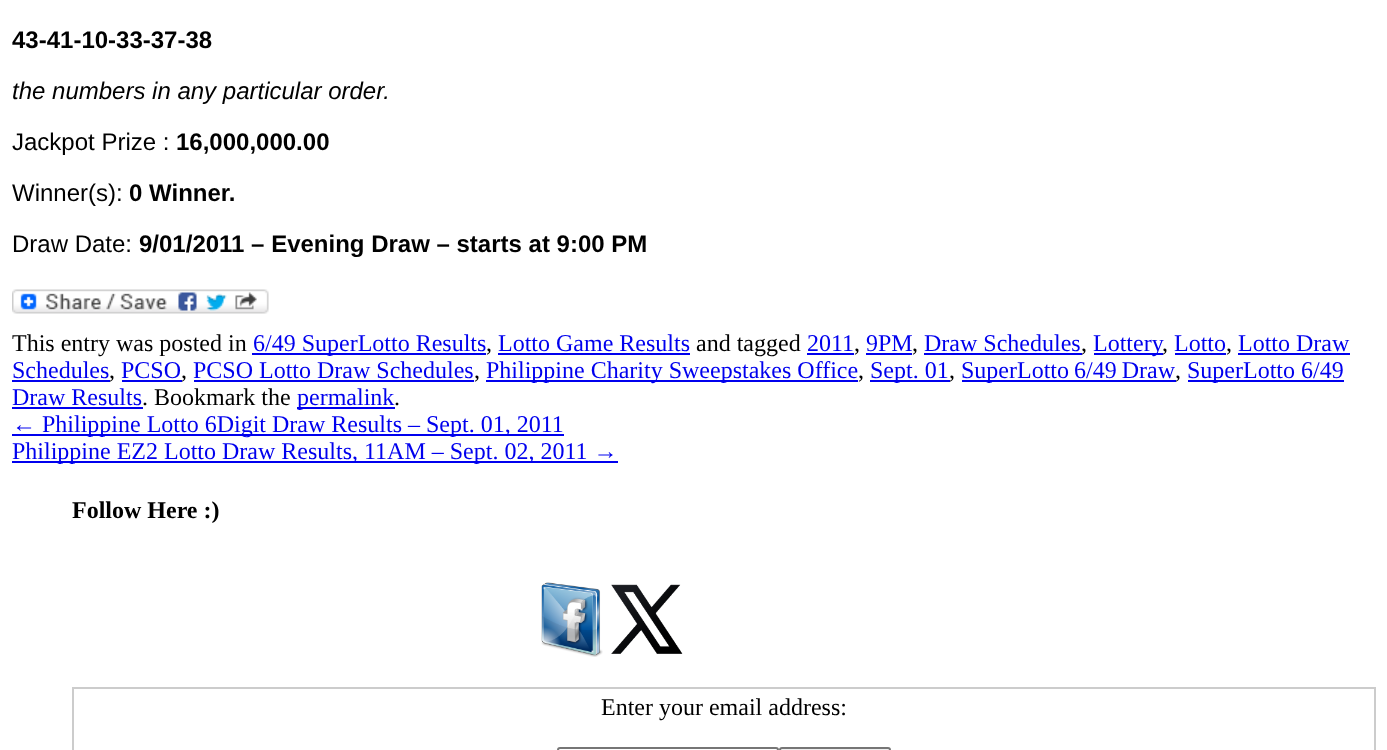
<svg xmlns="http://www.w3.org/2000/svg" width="1387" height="750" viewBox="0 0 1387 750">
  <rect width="100%" height="100%" fill="rgb(255,255,255)"/>
  <text x="12" y="48" font-family="Liberation Sans" font-size="24" font-weight="bold" fill="rgb(0,0,0)">43-41-10-33-37-38</text>
  <text x="12" y="99" font-family="Liberation Sans" font-size="24" font-style="italic" fill="rgb(0,0,0)">the numbers in any particular order.</text>
  <text x="12" y="150" font-family="Liberation Sans" font-size="24" fill="rgb(0,0,0)">Jackpot Prize :</text>
  <text x="176" y="150" font-family="Liberation Sans" font-size="24" font-weight="bold" fill="rgb(0,0,0)">16,000,000.00</text>
  <text x="12" y="201" font-family="Liberation Sans" font-size="24" fill="rgb(0,0,0)">Winner(s):</text>
  <text x="129" y="201" font-family="Liberation Sans" font-size="24" font-weight="bold" fill="rgb(0,0,0)">0 Winner.</text>
  <text x="12" y="252" font-family="Liberation Sans" font-size="24" fill="rgb(0,0,0)">Draw Date:</text>
  <text x="139" y="252" font-family="Liberation Sans" font-size="24" font-weight="bold" fill="rgb(0,0,0)">9/01/2011 – Evening Draw – starts at 9:00 PM</text>
  <image x="12" y="289" width="257" height="25" href="pic1.png"/>
  <text x="12" y="351" font-family="Liberation Serif" font-size="24" fill="rgb(0,0,0)">This entry was posted in</text>
  <rect x="252" y="353" width="234" height="2" fill="rgb(0,0,238)"/>
  <text x="253" y="351" font-family="Liberation Serif" font-size="24" fill="rgb(0,0,238)">6/49 SuperLotto Results</text>
  <text x="486" y="351" font-family="Liberation Serif" font-size="24" fill="rgb(0,0,0)">,</text>
  <text x="498" y="351" font-family="Liberation Serif" font-size="24" fill="rgb(0,0,238)">Lotto Game Results</text>
  <rect x="498" y="353" width="192" height="2" fill="rgb(0,0,238)"/>
  <text x="696" y="351" font-family="Liberation Serif" font-size="24" fill="rgb(0,0,0)">and tagged</text>
  <text x="807" y="351" font-family="Liberation Serif" font-size="24" fill="rgb(0,0,238)">2011</text>
  <rect x="807" y="353" width="47" height="2" fill="rgb(0,0,238)"/>
  <text x="854" y="351" font-family="Liberation Serif" font-size="24" fill="rgb(0,0,0)">,</text>
  <text x="866" y="351" font-family="Liberation Serif" font-size="24" fill="rgb(0,0,238)">9PM</text>
  <rect x="866" y="353" width="46" height="2" fill="rgb(0,0,238)"/>
  <text x="912" y="351" font-family="Liberation Serif" font-size="24" fill="rgb(0,0,0)">,</text>
  <text x="924" y="351" font-family="Liberation Serif" font-size="24" fill="rgb(0,0,238)">Draw Schedules</text>
  <rect x="924" y="353" width="158" height="2" fill="rgb(0,0,238)"/>
  <text x="1081" y="351" font-family="Liberation Serif" font-size="24" fill="rgb(0,0,0)">,</text>
  <rect x="1094" y="353" width="69" height="2" fill="rgb(0,0,238)"/>
  <text x="1093" y="351" font-family="Liberation Serif" font-size="24" fill="rgb(0,0,238)">Lottery</text>
  <text x="1162" y="351" font-family="Liberation Serif" font-size="24" fill="rgb(0,0,0)">,</text>
  <text x="1174" y="351" font-family="Liberation Serif" font-size="24" fill="rgb(0,0,238)">Lotto</text>
  <rect x="1175" y="353" width="51" height="2" fill="rgb(0,0,238)"/>
  <text x="1226" y="351" font-family="Liberation Serif" font-size="24" fill="rgb(0,0,0)">,</text>
  <text x="1238" y="351" font-family="Liberation Serif" font-size="24" fill="rgb(0,0,238)">Lotto Draw</text>
  <rect x="1238" y="353" width="112" height="2" fill="rgb(0,0,238)"/>
  <text x="12" y="378" font-family="Liberation Serif" font-size="24" fill="rgb(0,0,238)">Schedules</text>
  <rect x="12" y="380" width="98" height="2" fill="rgb(0,0,238)"/>
  <text x="109" y="378" font-family="Liberation Serif" font-size="24" fill="rgb(0,0,0)">,</text>
  <text x="121" y="378" font-family="Liberation Serif" font-size="24" fill="rgb(0,0,238)">PCSO</text>
  <rect x="122" y="380" width="60" height="2" fill="rgb(0,0,238)"/>
  <text x="181" y="378" font-family="Liberation Serif" font-size="24" fill="rgb(0,0,0)">,</text>
  <text x="193" y="378" font-family="Liberation Serif" font-size="24" fill="rgb(0,0,238)">PCSO Lotto Draw Schedules</text>
  <rect x="194" y="380" width="280" height="2" fill="rgb(0,0,238)"/>
  <text x="474" y="378" font-family="Liberation Serif" font-size="24" fill="rgb(0,0,0)">,</text>
  <rect x="486" y="380" width="372" height="2" fill="rgb(0,0,238)"/>
  <text x="486" y="378" font-family="Liberation Serif" font-size="24" fill="rgb(0,0,238)">Philippine Charity Sweepstakes Office</text>
  <text x="858" y="378" font-family="Liberation Serif" font-size="24" fill="rgb(0,0,0)">,</text>
  <rect x="870" y="380" width="80" height="2" fill="rgb(0,0,238)"/>
  <text x="870" y="378" font-family="Liberation Serif" font-size="24" fill="rgb(0,0,238)">Sept. 01</text>
  <text x="949" y="378" font-family="Liberation Serif" font-size="24" fill="rgb(0,0,0)">,</text>
  <rect x="962" y="380" width="214" height="2" fill="rgb(0,0,238)"/>
  <text x="961" y="378" word-spacing="-1" font-family="Liberation Serif" font-size="24" fill="rgb(0,0,238)">SuperLotto 6/49 Draw</text>
  <text x="1175" y="378" font-family="Liberation Serif" font-size="24" fill="rgb(0,0,0)">,</text>
  <rect x="1188" y="380" width="156" height="2" fill="rgb(0,0,238)"/>
  <g font-family="Liberation Serif" font-size="24" fill="rgb(0,0,238)">
    <text x="1187" y="378">SuperLotto 6/49</text>
    <text x="12" y="405">Draw Results</text>
  </g>
  <rect x="12" y="407" width="131" height="2" fill="rgb(0,0,238)"/>
  <text x="142" y="405" font-family="Liberation Serif" font-size="24" fill="rgb(0,0,0)">. Bookmark the</text>
  <rect x="297" y="407" width="98" height="2" fill="rgb(0,0,238)"/>
  <text x="297" y="405" font-family="Liberation Serif" font-size="24" fill="rgb(0,0,238)">permalink</text>
  <text x="394" y="405" font-family="Liberation Serif" font-size="24" fill="rgb(0,0,0)">.</text>
  <rect x="12" y="434" width="552" height="2" fill="rgb(0,0,238)"/>
  <text x="12" y="432" font-family="Liberation Serif" font-size="24" fill="rgb(0,0,238)">← Philippine Lotto 6Digit Draw Results – Sept. 01, 2011</text>
  <rect x="12" y="461" width="606" height="2" fill="rgb(0,0,238)"/>
  <text x="12" y="459" font-family="Liberation Serif" font-size="24" fill="rgb(0,0,238)">Philippine EZ2 Lotto Draw Results, 11AM – Sept. 02, 2011 →</text>
  <text x="72" y="518" font-family="Liberation Serif" font-size="24" font-weight="bold" fill="rgb(0,0,0)">Follow Here :)</text>
  <image x="541" y="582" width="62" height="75" href="pic2.png"/>
  <image x="611" y="584" width="72" height="70" href="pic3.png"/>
  <rect x="73" y="688" width="1302" height="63" fill="none" stroke="rgb(204,204,204)" stroke-width="2"/>
  <text x="601" y="715" font-family="Liberation Serif" font-size="24" fill="rgb(0,0,0)">Enter your email address:</text>
  <rect x="558" y="748" width="220" height="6" rx="2" fill="none" stroke="rgb(118,118,118)" stroke-width="2"/>
  <rect x="780" y="748" width="110" height="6" rx="2" fill="rgb(239,239,239)" stroke="rgb(118,118,118)" stroke-width="2"/>
</svg>
